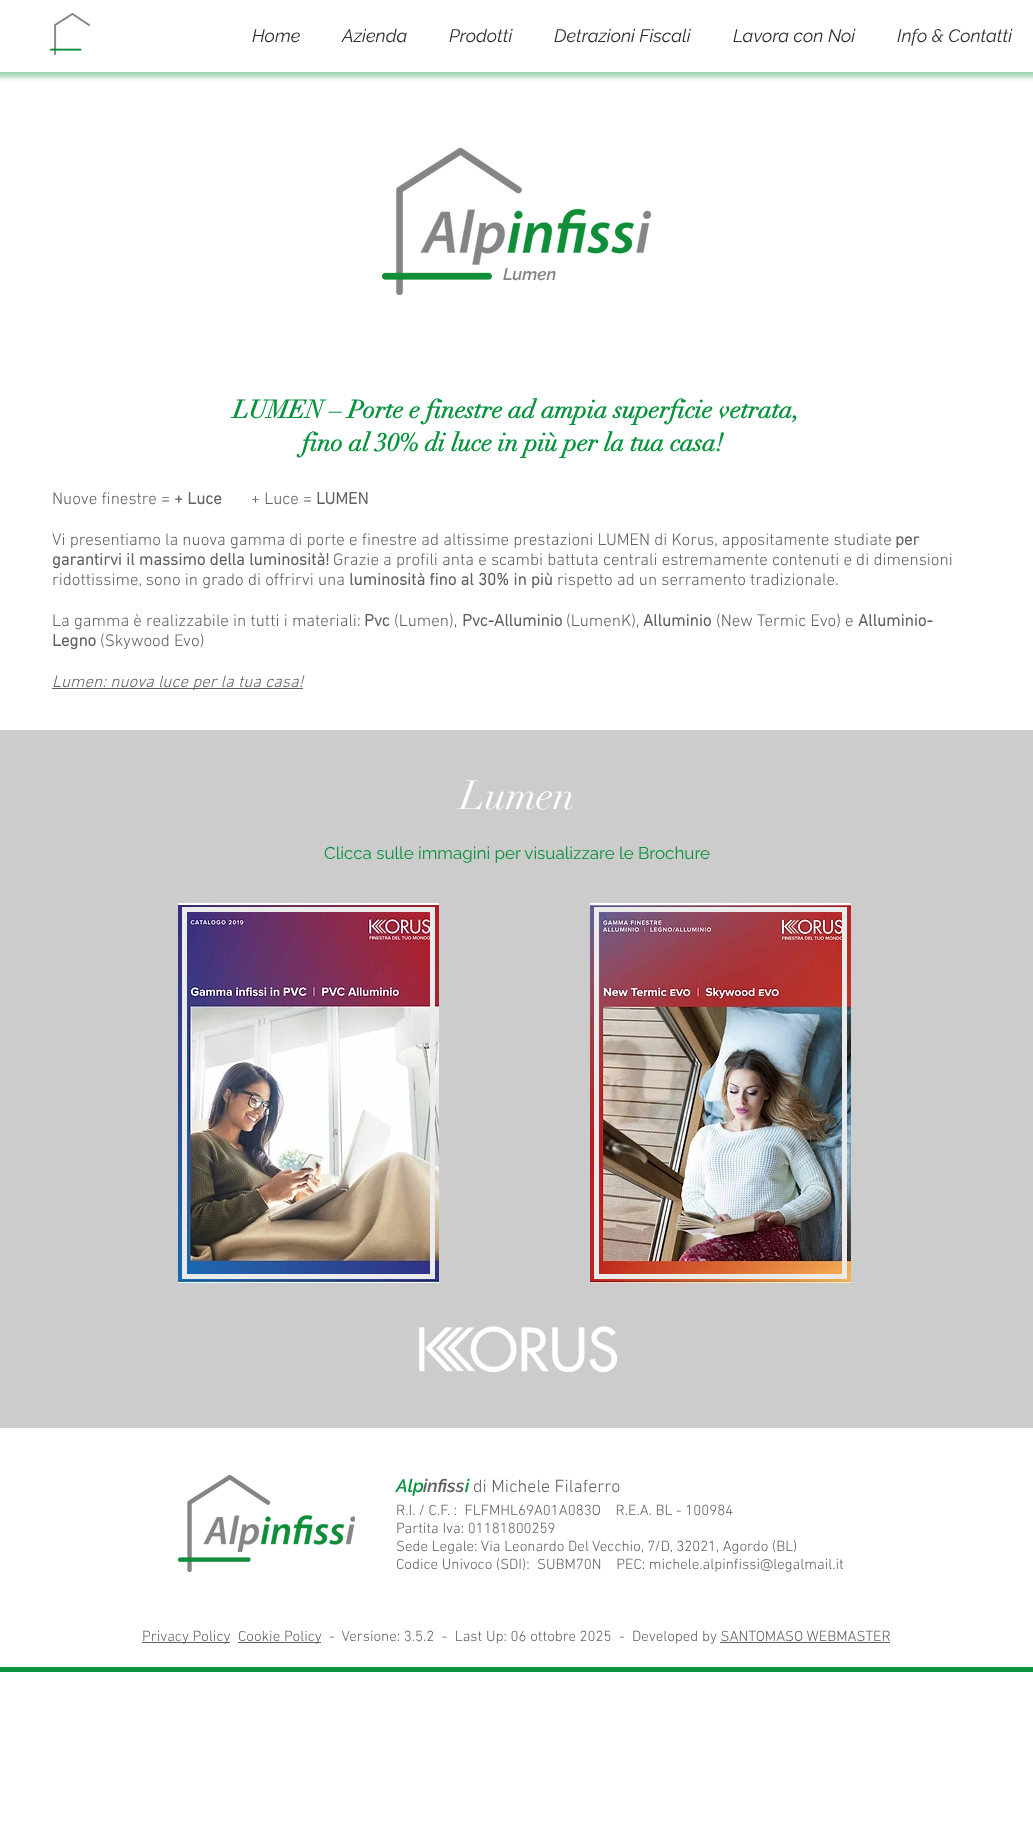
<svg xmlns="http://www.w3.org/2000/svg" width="1033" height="1839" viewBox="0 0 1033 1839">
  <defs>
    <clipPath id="clip1"><rect x="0" y="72" width="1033" height="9"/></clipPath>
  </defs>
  <rect width="100%" height="100%" fill="rgb(255,255,255)"/>
  <g clip-path="url(#clip1)">
    <rect x="-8" y="5" width="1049" height="72" fill="rgba(7,146,60,0.4)" filter="blur(2.5px)"/>
  </g>
  <image x="50" y="13" width="40" height="42" href="pic1.png"/>
  <g font-family="Raleway" font-size="18" font-style="italic" fill="rgb(47,46,46)">
    <text x="252" y="42">Home</text>
    <text x="342" y="42">Azienda</text>
    <text x="449" y="42">Prodotti</text>
    <text x="554" y="42">Detrazioni Fiscali</text>
    <text x="733" y="42">Lavora con Noi</text>
    <text x="897" y="42">Info &amp; Contatti</text>
  </g>
  <image x="382" y="148" width="269" height="147" href="pic2.png"/>
  <text x="503" y="280" font-family="Raleway" font-size="17" font-weight="600" font-style="italic" fill="rgb(133,133,133)">Lumen</text>
  <g font-family="didot" font-size="25" font-weight="bold" fill="rgb(7,146,60)">
    <text x="233" y="418">LUMEN – Porte e finestre ad ampia superficie vetrata,</text>
    <text x="302" y="451">fino al 30% di luce in più per la tua casa!</text>
  </g>
  <text x="52" y="504" font-family="'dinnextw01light'" font-size="17" font-weight="300" fill="rgb(96,94,94)">Nuove finestre =</text>
  <text x="174" y="504" font-family="'dinnextw01light'" font-size="17" font-weight="bold" fill="rgb(96,94,94)">+ Luce</text>
  <text x="251" y="504" font-family="'dinnextw01light'" font-size="17" font-weight="300" fill="rgb(96,94,94)">+ Luce =</text>
  <text x="316" y="504" font-family="'dinnextw01light'" font-size="17" font-weight="bold" fill="rgb(96,94,94)">LUMEN</text>
  <text x="52" y="545" font-family="'dinnextw01light'" font-size="17" font-weight="300" fill="rgb(96,94,94)">Vi presentiamo la nuova gamma di porte e finestre ad altissime prestazioni LUMEN di Korus, appositamente studiate</text>
  <g font-family="'dinnextw01light'" font-size="17" font-weight="bold" fill="rgb(96,94,94)">
    <text x="895" y="545">per</text>
    <text x="52" y="565">garantirvi il massimo della luminosità!</text>
  </g>
  <g font-family="'dinnextw01light'" font-size="17" font-weight="300" fill="rgb(96,94,94)">
    <text x="333" y="565">Grazie a profili anta e scambi battuta centrali estremamente contenuti e di dimensioni</text>
    <text x="52" y="585">ridottissime, sono in grado di offrirvi una</text>
  </g>
  <text x="349" y="585" font-family="'dinnextw01light'" font-size="17" font-weight="bold" fill="rgb(96,94,94)">luminosità fino al 30% in più</text>
  <g font-family="'dinnextw01light'" font-size="17" font-weight="300" fill="rgb(96,94,94)">
    <text x="557" y="585">rispetto ad un serramento tradizionale.</text>
    <text x="52" y="626">La gamma è realizzabile in tutti i materiali:</text>
  </g>
  <text x="364" y="626" font-family="'dinnextw01light'" font-size="17" font-weight="bold" fill="rgb(96,94,94)">Pvc</text>
  <text x="394" y="626" font-family="'dinnextw01light'" font-size="17" font-weight="300" fill="rgb(96,94,94)">(Lumen),</text>
  <text x="462" y="626" font-family="'dinnextw01light'" font-size="17" font-weight="bold" fill="rgb(96,94,94)">Pvc-Alluminio</text>
  <text x="566" y="626" font-family="'dinnextw01light'" font-size="17" font-weight="300" fill="rgb(96,94,94)">(LumenK),</text>
  <text x="643" y="626" font-family="'dinnextw01light'" font-size="17" font-weight="bold" fill="rgb(96,94,94)">Alluminio</text>
  <text x="716" y="626" font-family="'dinnextw01light'" font-size="17" font-weight="300" fill="rgb(96,94,94)">(New Termic Evo) e</text>
  <g font-family="'dinnextw01light'" font-size="17" font-weight="bold" fill="rgb(96,94,94)">
    <text x="858" y="626">Alluminio-</text>
    <text x="52" y="646">Legno</text>
  </g>
  <text x="100" y="646" font-family="'dinnextw01light'" font-size="17" font-weight="300" fill="rgb(96,94,94)">(Skywood Evo)</text>
  <rect x="52" y="688" width="251" height="1" fill="rgb(96,94,94)"/>
  <text x="52" y="687" font-family="'dinnextw01light'" font-size="17" font-weight="300" font-style="italic" fill="rgb(96,94,94)">Lumen: nuova luce per la tua casa!</text>
  <rect x="0" y="730" width="1033" height="698" fill="rgb(204,204,204)"/>
  <text x="460" y="809" font-family="didot" font-size="40" fill="rgb(255,255,254)">Lumen</text>
  <text x="324" y="859" font-family="Raleway" font-size="17" fill="rgb(7,146,60)">Clicca sulle immagini per visualizzare le Brochure</text>
  <image x="178" y="903" width="261" height="380" href="pic3.png"/>
  <rect x="184.5" y="909.5" width="248" height="367" fill="none" stroke="rgb(235,235,235)" stroke-width="5"/>
  <image x="590" y="903" width="261" height="380" href="pic4.png"/>
  <rect x="596.5" y="909.5" width="248" height="367" fill="none" stroke="rgb(235,235,235)" stroke-width="5"/>
  <image x="419" y="1326" width="198" height="46" href="pic5.png"/>
  <image x="178" y="1475" width="177" height="97" href="pic6.png"/>
  <text x="396" y="1492" font-family="Raleway" font-size="18" font-weight="600" font-style="italic" fill="rgb(7,146,60)">Alp</text>
  <text x="423" y="1492" font-family="Raleway" font-size="18" font-weight="600" font-style="italic" fill="rgb(96,94,94)">infiss</text>
  <text x="465" y="1492" font-family="Raleway" font-size="18" font-weight="600" font-style="italic" fill="rgb(7,146,60)">i</text>
  <text x="473" y="1492" font-family="'dinnextw01light'" font-size="18" font-weight="300" fill="rgb(96,94,94)">di Michele Filaferro</text>
  <g font-family="'dinnextw01light'" font-size="15" font-weight="300" fill="rgb(96,94,94)">
    <text xml:space="preserve"><tspan x="396" y="1515">R.I. / C.F. :  FLFMHL69A01A083O    R.E.A. BL - 100984</tspan><tspan x="396" y="1533">Partita Iva: 01181800259</tspan><tspan x="396" y="1551">Sede Legale: Via Leonardo Del Vecchio, 7/D, 32021, Agordo (BL)</tspan><tspan x="396" y="1569">Codice Univoco (SDI):  SUBM70N    PEC: michele.alpinfissi@legalmail.it</tspan></text>
  </g>
  <rect x="142" y="1642" width="88" height="1" fill="rgb(96,94,94)"/>
  <text x="142" y="1641" font-family="'dinnextw01light'" font-size="15" font-weight="300" fill="rgb(96,94,94)">Privacy Policy</text>
  <rect x="238" y="1642" width="83" height="1" fill="rgb(96,94,94)"/>
  <g font-family="'dinnextw01light'" font-size="15" font-weight="300" fill="rgb(96,94,94)">
    <text x="238" y="1641">Cookie Policy</text>
    <text x="329" y="1641" xml:space="preserve">-  Versione: 3.5.2  -  Last Up: 06 ottobre 2025  -  Developed by SANTOMASO WEBMASTER</text>
  </g>
  <rect x="720" y="1642" width="170" height="1" fill="rgb(96,94,94)"/>
  <rect x="0" y="1667" width="1033" height="5" fill="rgb(7,146,60)"/>
</svg>
